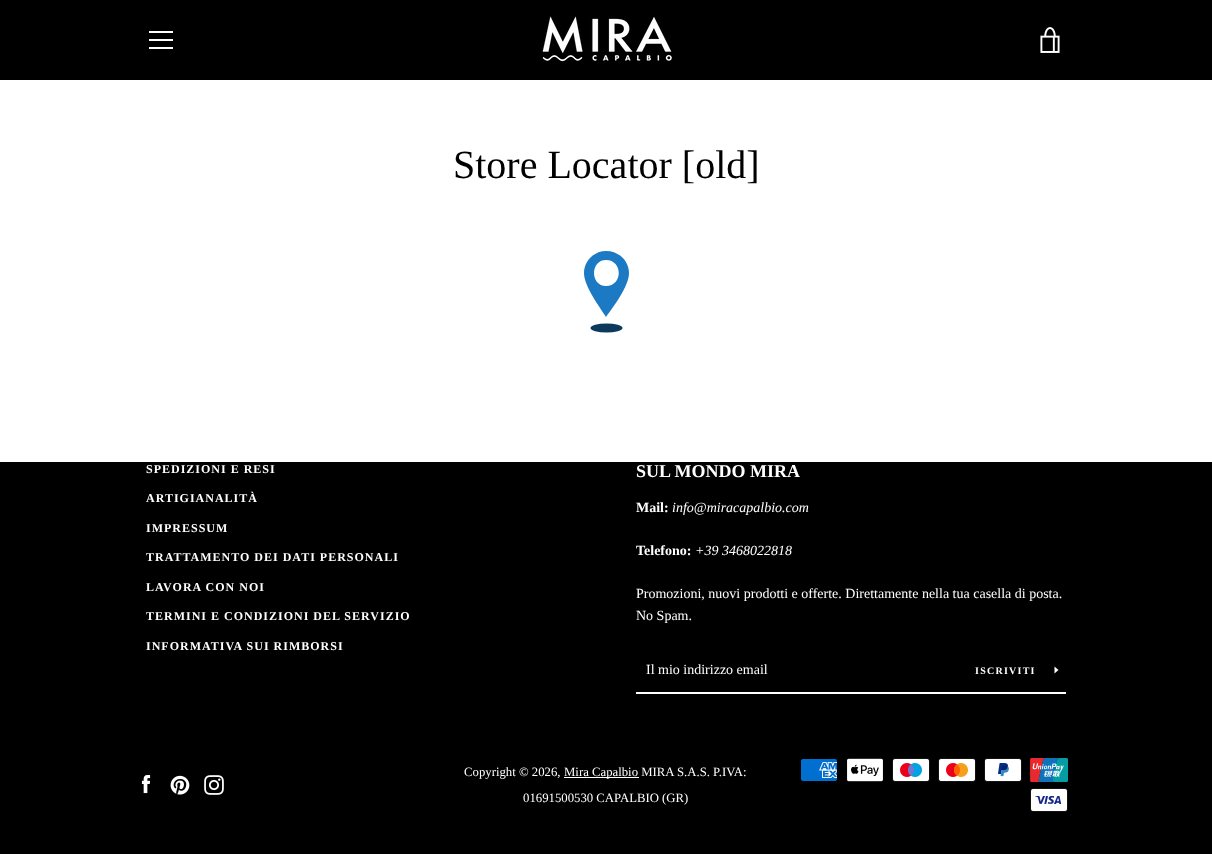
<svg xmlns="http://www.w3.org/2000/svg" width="1212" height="854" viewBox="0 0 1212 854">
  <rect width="100%" height="100%" fill="rgb(0,0,0)"/>
  <rect x="149" y="31" width="24" height="2" fill="rgb(255,255,255)"/>
  <rect x="149" y="39" width="24" height="2" fill="rgb(255,255,255)"/>
  <rect x="149" y="47" width="24" height="2" fill="rgb(255,255,255)"/>
  <image x="542" y="16" width="130" height="46" href="pic1.png"/>
  <image x="1040" y="27" width="20" height="26" href="pic2.png"/>
  <rect x="0" y="80" width="1212" height="382" fill="rgb(255,255,255)"/>
  <text x="453" y="178" font-family="Liberation Serif" font-size="40" fill="rgb(0,0,0)">Store Locator [old]</text>
  <path d="M606 317C599 306 584 286 584 273C584 261 594 251 606 251C619 251 629 261 629 273C629 286 614 306 606 317ZM606 260C590 260 590 286 606 286C623 286 623 260 606 260Z" fill="rgb(28,121,196)"/>
  <ellipse cx="606.5" cy="328" rx="16" ry="4.5" fill="rgb(13,57,92)"/>
  <g font-family="Liberation Serif" font-size="12" font-weight="bold" letter-spacing="1" fill="rgb(255,255,255)">
    <text x="146" y="473">SPEDIZIONI E RESI</text>
    <text x="146" y="502">ARTIGIANALITÀ</text>
    <text x="146" y="532">IMPRESSUM</text>
    <text x="146" y="561">TRATTAMENTO DEI DATI PERSONALI</text>
    <text x="146" y="591">LAVORA CON NOI</text>
    <text x="146" y="620">TERMINI E CONDIZIONI DEL SERVIZIO</text>
    <text x="146" y="650">INFORMATIVA SUI RIMBORSI</text>
  </g>
  <text x="636" y="477" font-family="Liberation Serif" font-size="18" font-weight="bold" fill="rgb(255,255,255)">SUL MONDO MIRA</text>
  <text x="636" y="512" font-family="Liberation Serif" font-size="14" font-weight="bold" fill="rgb(255,255,255)">Mail:</text>
  <text x="672" y="512" font-family="Liberation Serif" font-size="14" font-style="italic" fill="rgb(255,255,255)">info@miracapalbio.com</text>
  <text x="636" y="555" font-family="Liberation Serif" font-size="14" font-weight="bold" fill="rgb(255,255,255)">Telefono:</text>
  <text x="695" y="555" font-family="Liberation Serif" font-size="14" font-style="italic" fill="rgb(255,255,255)">+39 3468022818</text>
  <g font-family="Liberation Serif" font-size="14" fill="rgb(255,255,255)">
    <text>
      <tspan x="636" y="598">Promozioni, nuovi prodotti e offerte. Direttamente nella tua casella di posta.</tspan>
      <tspan x="636" y="620">No Spam.</tspan>
    </text>
  </g>
  <rect x="636" y="692" width="430" height="2" fill="rgb(255,255,255)"/>
  <text x="646" y="674" font-family="Liberation Serif" font-size="14" fill="rgb(255,255,255)">Il mio indirizzo email</text>
  <text x="975" y="674" font-family="Liberation Serif" font-size="10" font-weight="bold" letter-spacing="1.25" fill="rgb(255,255,255)">ISCRIVITI</text>
  <path d="M1058.5 670L1054.5 673.5V666.5Z" fill="rgb(255,255,255)"/>
  <image x="141" y="775" width="10" height="19" href="pic3.png"/>
  <image x="170" y="775" width="20" height="20" href="pic4.png"/>
  <image x="204" y="775" width="20" height="20" href="pic5.png"/>
  <text x="464" y="776" font-family="Liberation Serif" font-size="12.75" fill="rgb(255,255,255)">Copyright © 2026,</text>
  <rect x="564" y="777" width="75" height="1" fill="rgb(255,255,255)"/>
  <g font-family="Liberation Serif" font-size="12.75" fill="rgb(255,255,255)">
    <text x="564" y="776">Mira Capalbio MIRA S.A.S. P.IVA:</text>
    <text x="523" y="802">01691500530 CAPALBIO (GR)</text>
  </g>
  <image x="801" y="759" width="36" height="22" href="pic6.png"/>
  <image x="847" y="758" width="36" height="24" href="pic7.png"/>
  <image x="892" y="758" width="38" height="24" href="pic8.png"/>
  <image x="938" y="758" width="38" height="24" href="pic9.png"/>
  <image x="984" y="758" width="38" height="24" href="pic10.png"/>
  <image x="1030" y="758" width="38" height="24" href="pic11.png"/>
  <image x="1030" y="788" width="38" height="24" href="pic12.png"/>
</svg>
